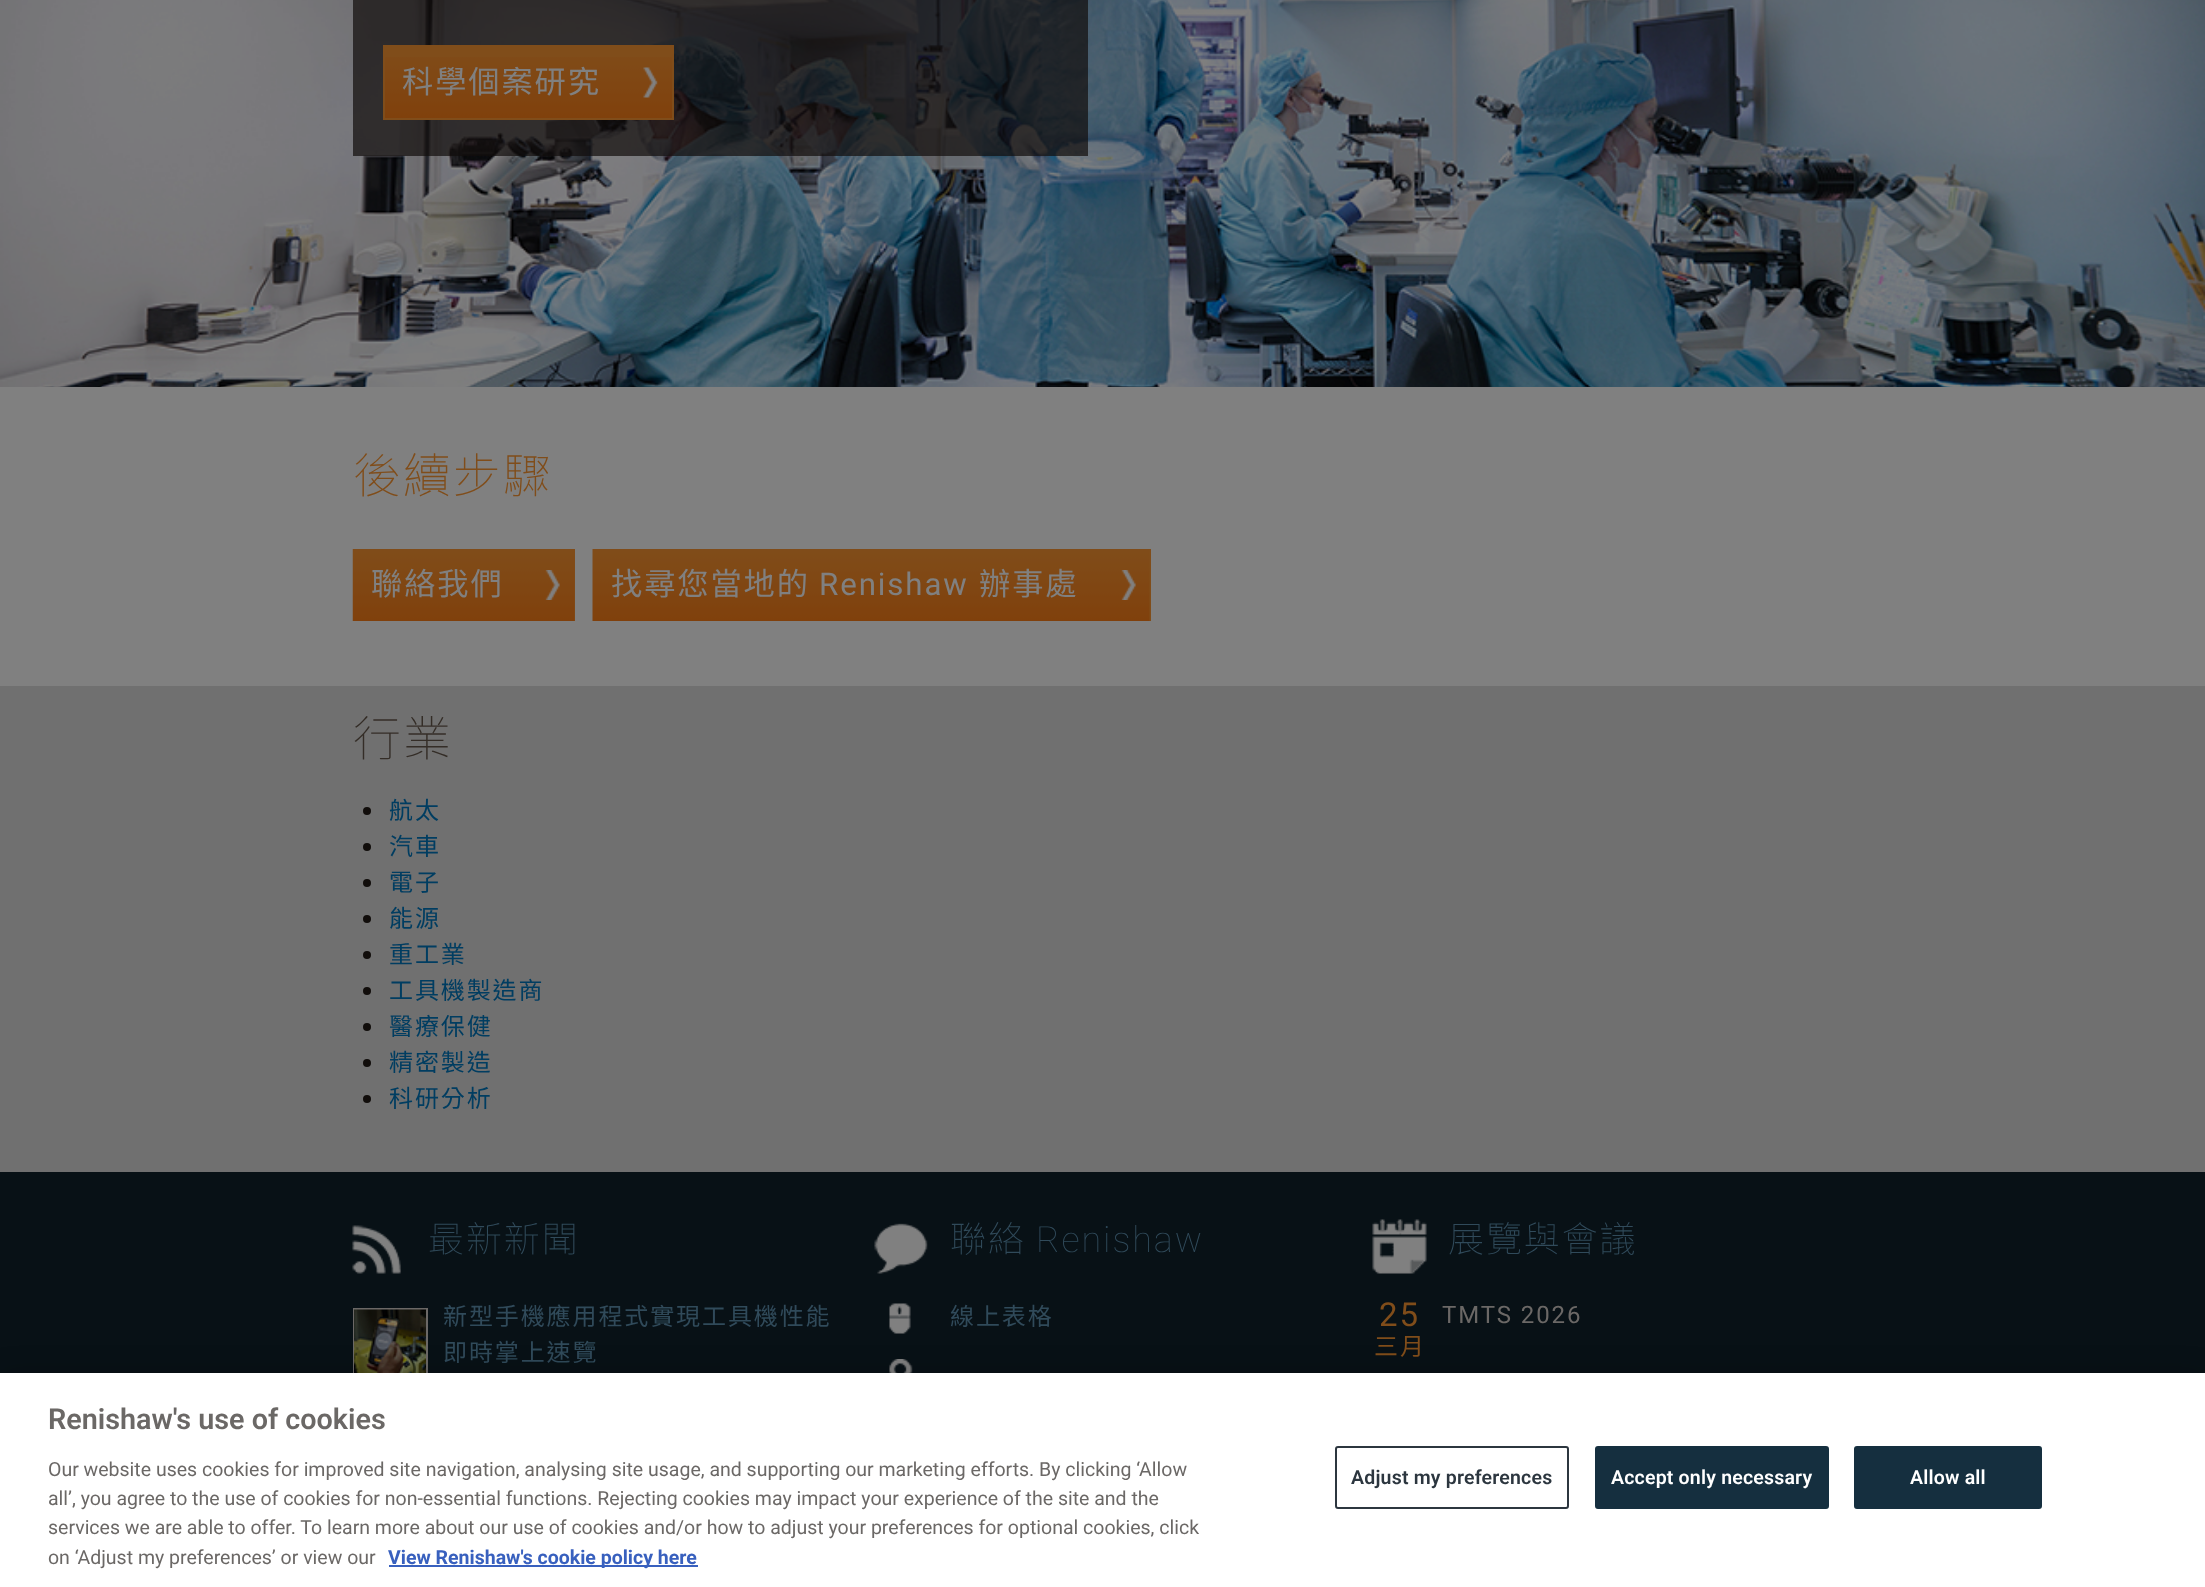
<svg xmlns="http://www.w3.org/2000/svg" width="2205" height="1587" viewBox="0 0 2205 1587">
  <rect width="100%" height="100%" fill="rgb(128,128,128)"/>
  <image x="0" y="0" width="2205" height="387" href="pic1.png"/>
  <rect x="353" y="0" width="735" height="156" fill="rgba(17,13,11,0.7)"/>
  <rect x="385" y="47" width="287" height="10" fill="rgb(128,77,26)"/>
  <image x="385" y="57" width="287" height="61" href="pic2.png"/>
  <rect x="384" y="46" width="289" height="73" fill="none" stroke="rgb(128,77,26)" stroke-width="2"/>
  <text x="402" y="93" font-family="Noto Sans CJK TC" font-size="31.25" letter-spacing="1.9" fill="rgb(128,128,128)">科學個案研究</text>
  <text x="353" y="493" font-family="Noto Sans CJK TC" font-size="48" font-weight="100" letter-spacing="1.9" fill="rgb(128,77,26)">後續步驟</text>
  <rect x="574" y="549" width="1" height="72" fill="rgb(128,77,26)"/>
  <image x="352" y="549" width="223" height="72" href="pic3.png"/>
  <text x="371" y="595" font-family="Noto Sans CJK TC" font-size="31.25" letter-spacing="1.9" fill="rgb(128,128,128)">聯絡我們</text>
  <rect x="1149" y="549" width="2" height="72" fill="rgb(128,77,26)"/>
  <image x="592" y="549" width="558" height="72" href="pic4.png"/>
  <text x="611" y="595" font-family="Noto Sans CJK TC" font-size="31.25" letter-spacing="1.9" fill="rgb(128,128,128)">找尋您當地的</text>
  <text x="819" y="595" font-family="Roboto" font-size="31.25" letter-spacing="1.9" fill="rgb(128,128,128)">Renishaw</text>
  <text x="979" y="595" font-family="Noto Sans CJK TC" font-size="31.25" letter-spacing="1.9" fill="rgb(128,128,128)">辦事處</text>
  <rect x="0" y="686" width="2205" height="486" fill="rgb(112,112,112)"/>
  <text x="353" y="756" font-family="Noto Sans CJK TC" font-size="48" font-weight="100" letter-spacing="1.9" fill="rgb(52,45,39)">行業</text>
  <circle cx="367" cy="811" r="4" fill="rgb(17,13,11)"/>
  <text x="389" y="819" font-family="Noto Sans CJK TC" font-size="24" letter-spacing="1.9" fill="rgb(0,61,97)">航太</text>
  <circle cx="367" cy="847" r="4" fill="rgb(17,13,11)"/>
  <text x="389" y="855" font-family="Noto Sans CJK TC" font-size="24" letter-spacing="1.9" fill="rgb(0,61,97)">汽車</text>
  <circle cx="367" cy="883" r="4" fill="rgb(17,13,11)"/>
  <text x="389" y="891" font-family="Noto Sans CJK TC" font-size="24" letter-spacing="1.9" fill="rgb(0,61,97)">電子</text>
  <circle cx="367" cy="919" r="4" fill="rgb(17,13,11)"/>
  <text x="389" y="927" font-family="Noto Sans CJK TC" font-size="24" letter-spacing="1.9" fill="rgb(0,61,97)">能源</text>
  <circle cx="367" cy="955" r="4" fill="rgb(17,13,11)"/>
  <text x="389" y="963" font-family="Noto Sans CJK TC" font-size="24" letter-spacing="1.9" fill="rgb(0,61,97)">重工業</text>
  <circle cx="367" cy="991" r="4" fill="rgb(17,13,11)"/>
  <text x="389" y="999" font-family="Noto Sans CJK TC" font-size="24" letter-spacing="1.9" fill="rgb(0,61,97)">工具機製造商</text>
  <circle cx="367" cy="1027" r="4" fill="rgb(17,13,11)"/>
  <text x="389" y="1035" font-family="Noto Sans CJK TC" font-size="24" letter-spacing="1.9" fill="rgb(0,61,97)">醫療保健</text>
  <circle cx="367" cy="1063" r="4" fill="rgb(17,13,11)"/>
  <text x="389" y="1071" font-family="Noto Sans CJK TC" font-size="24" letter-spacing="1.9" fill="rgb(0,61,97)">精密製造</text>
  <circle cx="367" cy="1099" r="4" fill="rgb(17,13,11)"/>
  <text x="389" y="1107" font-family="Noto Sans CJK TC" font-size="24" letter-spacing="1.9" fill="rgb(0,61,97)">科研分析</text>
  <rect x="0" y="1172" width="2205" height="201" fill="rgb(8,17,22)"/>
  <image x="352" y="1225" width="49" height="49" href="pic5.png"/>
  <text x="428" y="1252" font-family="Noto Sans CJK TC" font-size="36" font-weight="100" letter-spacing="1.9" fill="rgb(48,74,90)">最新新聞</text>
  <rect x="354" y="1309" width="73" height="73" fill="none" stroke="rgb(107,104,102)" stroke-width="2"/>
  <image x="354" y="1309" width="72" height="64" href="pic6.png"/>
  <g font-family="Noto Sans CJK TC" font-size="24" letter-spacing="1.9" fill="rgb(48,74,90)">
    <text>
      <tspan x="443" y="1325">新型手機應用程式實現工具機性能</tspan>
      <tspan x="443" y="1361">即時掌上速覽</tspan>
    </text>
  </g>
  <image x="874" y="1223" width="54" height="51" href="pic7.png"/>
  <text x="950" y="1252" font-family="Noto Sans CJK TC" font-size="36" font-weight="100" letter-spacing="1.9" fill="rgb(48,74,90)">聯絡</text>
  <text x="1036" y="1252" font-family="Roboto" font-size="36" font-weight="100" letter-spacing="1.9" fill="rgb(48,74,90)">Renishaw</text>
  <image x="889" y="1303" width="22" height="31" href="pic8.png"/>
  <text x="950" y="1325" font-family="Noto Sans CJK TC" font-size="24" letter-spacing="1.9" fill="rgb(48,74,90)">線上表格</text>
  <image x="889" y="1359" width="24" height="14" href="pic9.png"/>
  <image x="1372" y="1219" width="55" height="55" href="pic10.png"/>
  <text x="1448" y="1252" font-family="Noto Sans CJK TC" font-size="36" font-weight="100" letter-spacing="1.9" fill="rgb(48,74,90)">展覽與會議</text>
  <text x="1379" y="1326" font-family="Roboto" font-size="33" letter-spacing="1.9" fill="rgb(128,77,26)">25</text>
  <text x="1374" y="1355" font-family="Noto Sans CJK TC" font-size="24" letter-spacing="1.9" fill="rgb(128,77,26)">三月</text>
  <text x="1442" y="1323" font-family="Roboto" font-size="24" letter-spacing="1.9" fill="rgb(107,104,102)">TMTS 2026</text>
  <rect x="0" y="1373" width="2205" height="214" fill="rgba(0,0,0,0.2)" filter="blur(13.5px)"/>
  <rect x="0" y="1373" width="2205" height="214" fill="rgb(255,255,255)"/>
  <text x="48" y="1429" font-family="Roboto" font-size="28.75" font-weight="600" fill="rgb(107,104,102)">Renishaw's use of cookies</text>
  <g font-family="Roboto" font-size="19.5" fill="rgb(107,104,102)">
    <text>
      <tspan x="48" y="1476">Our website uses cookies for improved site navigation, analysing site usage, and supporting our marketing efforts. By clicking ‘Allow</tspan>
      <tspan x="48" y="1505">all’, you agree to the use of cookies for non-essential functions. Rejecting cookies may impact your experience of the site and the</tspan>
      <tspan x="48" y="1534">services we are able to offer. To learn more about our use of cookies and/or how to adjust your preferences for optional cookies, click</tspan>
      <tspan x="48" y="1564">on ‘Adjust my preferences’ or view our</tspan>
    </text>
  </g>
  <rect x="389" y="1565" width="309" height="2" fill="rgb(56,96,190)"/>
  <text x="388" y="1564" font-family="Roboto" font-size="19.5" font-weight="bold" fill="rgb(56,96,190)">View Renishaw's cookie policy here</text>
  <rect x="1336" y="1447" width="232" height="61" rx="2" fill="none" stroke="rgb(44,54,63)" stroke-width="2"/>
  <text x="1351" y="1484" font-family="Roboto" font-size="19.5" font-weight="600" letter-spacing="0.2" fill="rgb(44,54,63)">Adjust my preferences</text>
  <rect x="1596" y="1447" width="232" height="61" rx="2" fill="rgb(21,47,63)" stroke="rgb(21,47,63)" stroke-width="2"/>
  <text x="1611" y="1484" font-family="Roboto" font-size="19.5" font-weight="600" letter-spacing="0.2" fill="rgb(255,255,255)">Accept only necessary</text>
  <rect x="1855" y="1447" width="186" height="61" rx="2" fill="rgb(21,47,63)" stroke="rgb(21,47,63)" stroke-width="2"/>
  <text x="1910" y="1484" font-family="Roboto" font-size="19.5" font-weight="600" letter-spacing="0.2" fill="rgb(255,255,255)">Allow all</text>
</svg>
